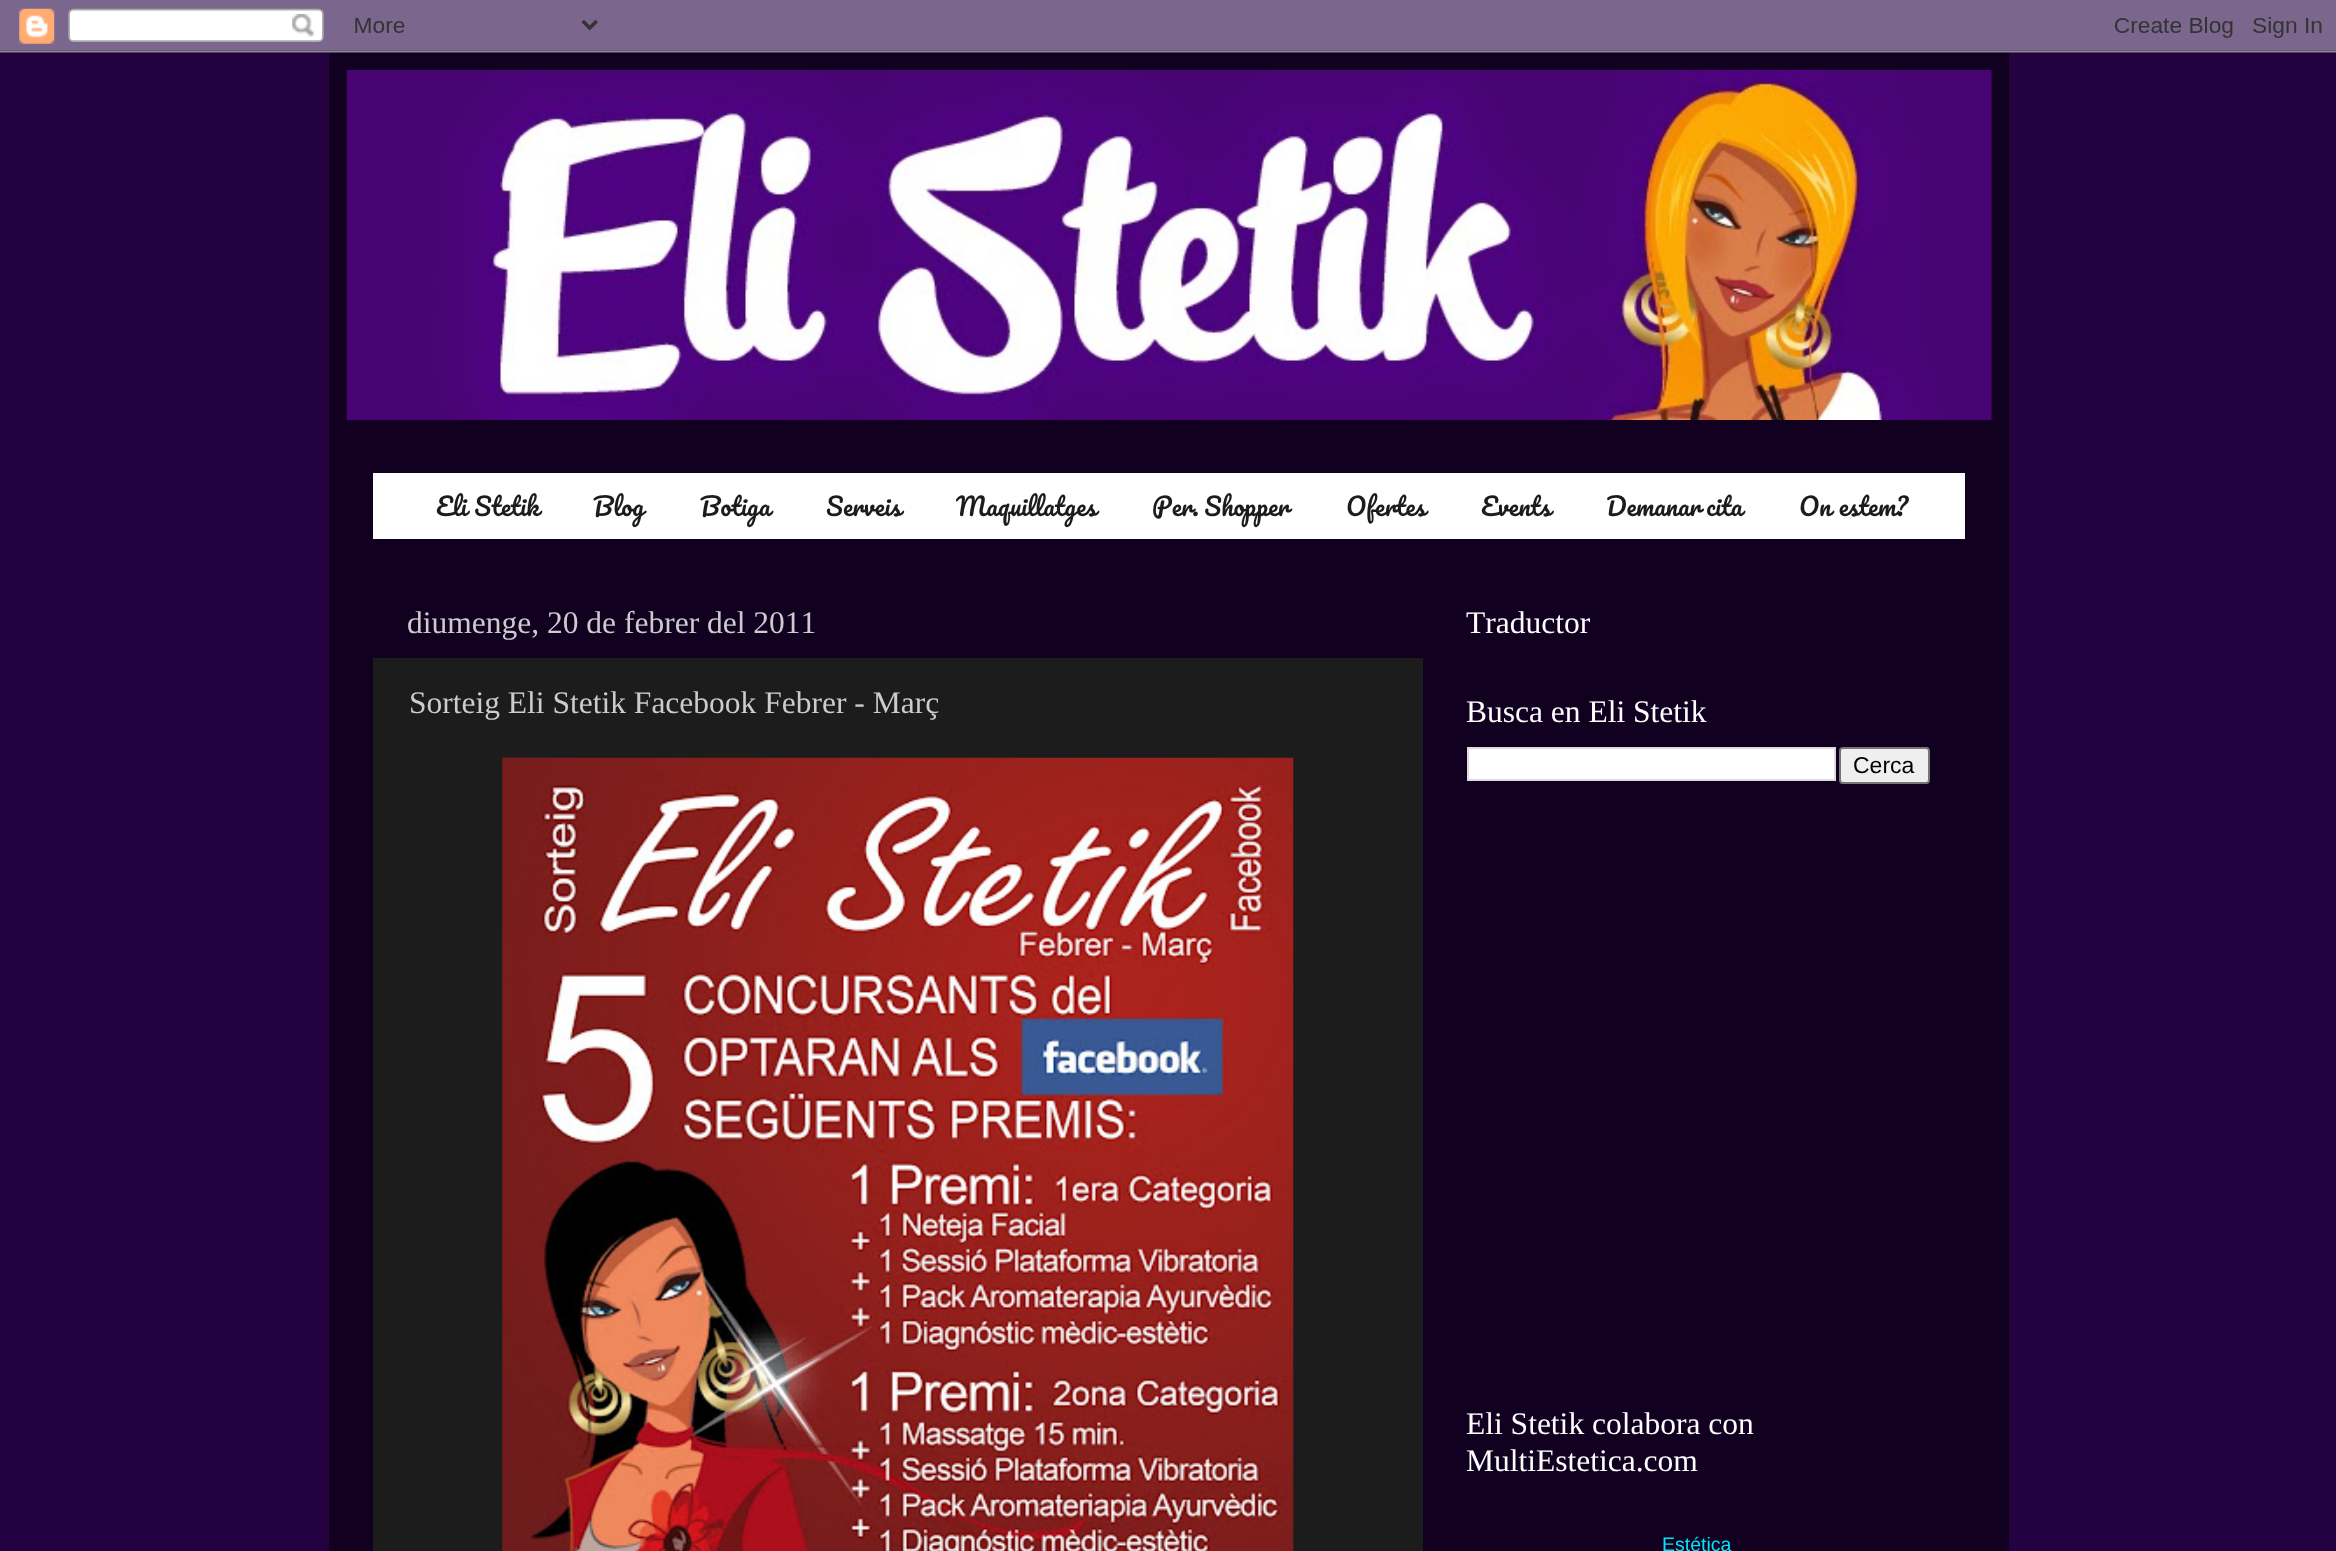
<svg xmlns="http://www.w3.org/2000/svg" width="2336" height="1551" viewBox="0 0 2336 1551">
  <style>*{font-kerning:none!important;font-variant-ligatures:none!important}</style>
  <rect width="100%" height="100%" fill="rgb(36,1,65)"/>
  <rect x="329" y="52" width="1680" height="1499" fill="rgb(17,0,32)"/>
  <image x="0" y="0" width="2336" height="53" href="pic1.png"/>
  <image x="346" y="70" width="1646" height="350" href="pic2.png"/>
  <rect x="373" y="473" width="1592" height="66" fill="rgb(255,255,255)"/>
  <g font-family="Pacifico" font-size="24.5" fill="rgb(28,28,28)">
    <text x="436" y="516" word-spacing="1">Eli Stetik</text>
    <text x="593" y="516">Blog</text>
    <text x="700" y="516">Botiga</text>
    <text x="826" y="516">Serveis</text>
    <text x="956" y="516">Maquillatges</text>
    <text x="1152" y="516" word-spacing="-1">Per. Shopper</text>
    <text x="1346" y="516">Ofertes</text>
    <text x="1481" y="516">Events</text>
    <text x="1606" y="516" word-spacing="-1">Demanar cita</text>
    <text x="1799" y="516" word-spacing="1">On estem?</text>
  </g>
  <text x="407" y="633" font-family="Liberation Serif" font-size="31.5" fill="rgb(204,204,204)">diumenge, 20 de febrer del 2011</text>
  <rect x="373" y="658" width="1050" height="893" fill="rgb(28,28,28)"/>
  <text x="409" y="713" font-family="Liberation Serif" font-size="31.5" fill="rgb(204,204,204)">Sorteig Eli Stetik Facebook Febrer - Març</text>
  <image x="502" y="757" width="792" height="794" href="pic3.png"/>
  <g font-family="Liberation Serif" font-size="31.5" fill="rgb(255,255,255)">
    <text x="1466" y="633">Traductor</text>
    <text x="1466" y="722">Busca en Eli Stetik</text>
  </g>
  <rect x="1468" y="748" width="367" height="32" fill="rgb(255,255,255)" stroke="rgb(221,221,221)" stroke-width="2"/>
  <rect x="1840" y="748" width="89" height="35" rx="3" fill="rgb(239,239,239)" stroke="rgb(118,118,118)" stroke-width="2"/>
  <text x="1853" y="773" font-family="Liberation Sans" font-size="23" fill="rgb(0,0,0)">Cerca</text>
  <g font-family="Liberation Serif" font-size="31.5" fill="rgb(255,255,255)">
    <text>
      <tspan x="1466" y="1434">Eli Stetik colabora con</tspan>
      <tspan x="1466" y="1471">MultiEstetica.com</tspan>
    </text>
  </g>
  <text x="1662" y="1551" font-family="Liberation Sans" font-size="19.5" fill="rgb(0,228,255)">Estética</text>
</svg>
